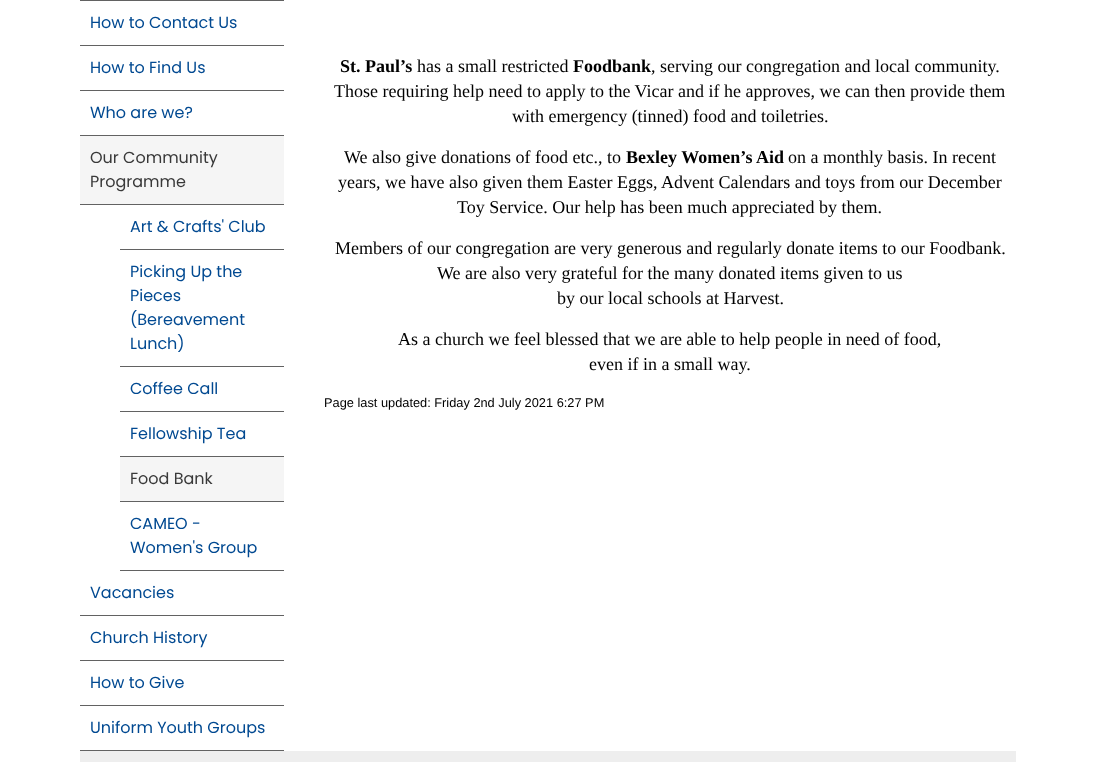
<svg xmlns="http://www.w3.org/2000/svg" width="1096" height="762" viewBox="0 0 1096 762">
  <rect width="100%" height="100%" fill="rgb(255,255,255)"/>
  <rect x="80" y="0" width="204" height="1" fill="rgb(98,98,98)"/>
  <rect x="80" y="45" width="204" height="1" fill="rgb(98,98,98)"/>
  <text x="90" y="28" font-family="Poppins" font-size="16" fill="rgb(1,73,145)">How to Contact Us</text>
  <rect x="80" y="90" width="204" height="1" fill="rgb(98,98,98)"/>
  <text x="90" y="73" font-family="Poppins" font-size="16" fill="rgb(1,73,145)">How to Find Us</text>
  <rect x="80" y="135" width="204" height="1" fill="rgb(98,98,98)"/>
  <text x="90" y="118" font-family="Poppins" font-size="16" fill="rgb(1,73,145)">Who are we?</text>
  <rect x="80" y="136" width="204" height="68" fill="rgb(245,245,245)"/>
  <rect x="80" y="204" width="204" height="1" fill="rgb(98,98,98)"/>
  <g font-family="Poppins" font-size="16" fill="rgb(57,57,57)">
    <text>
      <tspan x="90" y="163">Our Community</tspan>
      <tspan x="90" y="187">Programme</tspan>
    </text>
  </g>
  <rect x="120" y="249" width="164" height="1" fill="rgb(98,98,98)"/>
  <text x="130" y="232" font-family="Poppins" font-size="16" fill="rgb(1,73,145)">Art &amp; Crafts' Club</text>
  <rect x="120" y="366" width="164" height="1" fill="rgb(98,98,98)"/>
  <g font-family="Poppins" font-size="16" fill="rgb(1,73,145)">
    <text>
      <tspan x="130" y="277">Picking Up the</tspan>
      <tspan x="130" y="301">Pieces</tspan>
      <tspan x="130" y="325">(Bereavement</tspan>
      <tspan x="130" y="349">Lunch)</tspan>
    </text>
  </g>
  <rect x="120" y="411" width="164" height="1" fill="rgb(98,98,98)"/>
  <text x="130" y="394" font-family="Poppins" font-size="16" fill="rgb(1,73,145)">Coffee Call</text>
  <rect x="120" y="456" width="164" height="1" fill="rgb(98,98,98)"/>
  <text x="130" y="439" font-family="Poppins" font-size="16" fill="rgb(1,73,145)">Fellowship Tea</text>
  <rect x="120" y="457" width="164" height="44" fill="rgb(245,245,245)"/>
  <rect x="120" y="501" width="164" height="1" fill="rgb(98,98,98)"/>
  <text x="130" y="484" font-family="Poppins" font-size="16" fill="rgb(57,57,57)">Food Bank</text>
  <rect x="120" y="570" width="164" height="1" fill="rgb(98,98,98)"/>
  <g font-family="Poppins" font-size="16" fill="rgb(1,73,145)">
    <text>
      <tspan x="130" y="529">CAMEO -</tspan>
      <tspan x="130" y="553">Women's Group</tspan>
    </text>
  </g>
  <rect x="80" y="615" width="204" height="1" fill="rgb(98,98,98)"/>
  <text x="90" y="598" font-family="Poppins" font-size="16" fill="rgb(1,73,145)">Vacancies</text>
  <rect x="80" y="660" width="204" height="1" fill="rgb(98,98,98)"/>
  <text x="90" y="643" font-family="Poppins" font-size="16" fill="rgb(1,73,145)">Church History</text>
  <rect x="80" y="705" width="204" height="1" fill="rgb(98,98,98)"/>
  <text x="90" y="688" font-family="Poppins" font-size="16" fill="rgb(1,73,145)">How to Give</text>
  <rect x="80" y="750" width="204" height="1" fill="rgb(98,98,98)"/>
  <text x="90" y="733" font-family="Poppins" font-size="16" fill="rgb(1,73,145)">Uniform Youth Groups</text>
  <text x="340" y="72" font-family="Liberation Serif" font-size="18" font-weight="bold" fill="rgb(0,0,0)">St. Paul’s</text>
  <text x="417" y="72" font-family="Liberation Serif" font-size="18" fill="rgb(0,0,0)">has a small restricted</text>
  <text x="573" y="72" font-family="Liberation Serif" font-size="18" font-weight="bold" fill="rgb(0,0,0)">Foodbank</text>
  <g font-family="Liberation Serif" font-size="18" fill="rgb(0,0,0)">
    <text x="651" y="72">, serving our congregation and local community.</text>
    <text x="334" y="97">Those requiring help need to apply to the Vicar and if he approves, we can then provide them</text>
    <text x="512" y="122">with emergency (tinned) food and toiletries.</text>
    <text x="344" y="163">We also give donations of food etc., to</text>
  </g>
  <text x="626" y="163" font-family="Liberation Serif" font-size="18" font-weight="bold" fill="rgb(0,0,0)">Bexley Women’s Aid</text>
  <g font-family="Liberation Serif" font-size="18" fill="rgb(0,0,0)">
    <text x="788" y="163">on a monthly basis. In recent</text>
    <text x="338" y="188">years, we have also given them Easter Eggs, Advent Calendars and toys from our December</text>
    <text x="457" y="213">Toy Service. Our help has been much appreciated by them.</text>
    <text x="335" y="254">Members of our congregation are very generous and regularly donate items to our Foodbank.</text>
    <text x="437" y="279">We are also very grateful for the many donated items given to us</text>
    <text x="557" y="304">by our local schools at Harvest.</text>
    <text x="398" y="345">As a church we feel blessed that we are able to help people in need of food,</text>
    <text x="589" y="370">even if in a small way.</text>
  </g>
  <text x="324" y="407" font-family="Liberation Sans" font-size="12.8" fill="rgb(0,0,0)">Page last updated: Friday 2nd July 2021 6:27 PM</text>
  <rect x="80" y="751" width="936" height="11" fill="rgb(238,238,238)"/>
</svg>
